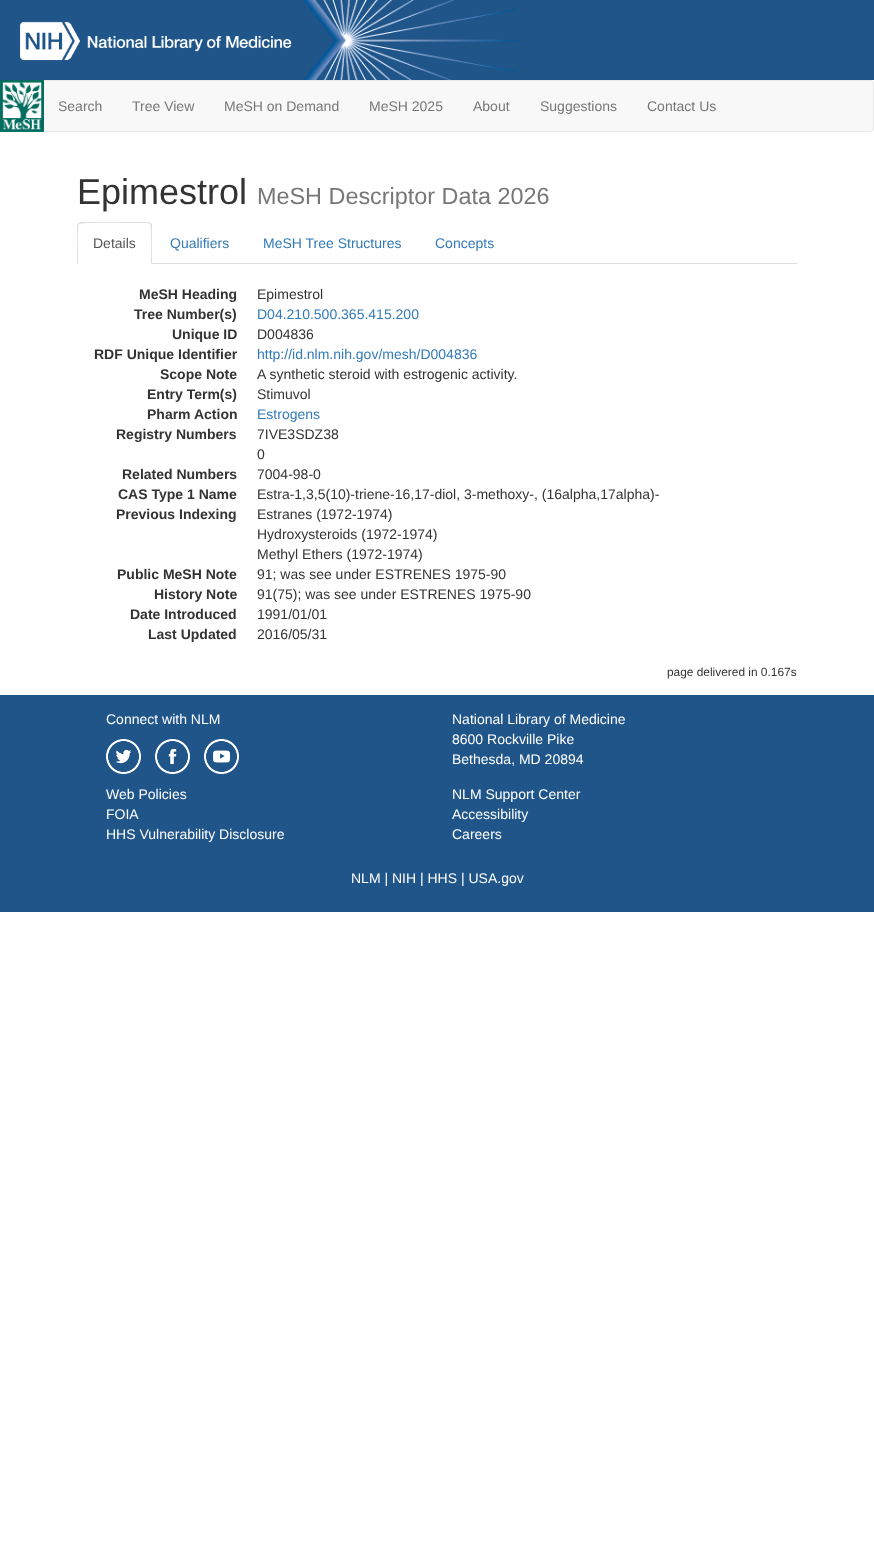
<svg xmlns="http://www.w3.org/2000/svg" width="874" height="1553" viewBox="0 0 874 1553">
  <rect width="100%" height="100%" fill="rgb(255,255,255)"/>
  <rect x="0" y="0" width="874" height="80" fill="rgb(32,85,138)"/>
  <image x="303" y="0" width="216" height="80" href="pic1.png"/>
  <image x="20" y="21" width="272" height="40" href="pic2.png"/>
  <rect x="0.5" y="80.5" width="873" height="51" rx="3.5" fill="rgb(248,248,248)" stroke="rgb(231,231,231)"/>
  <image x="0" y="80" width="44" height="52" href="pic3.png"/>
  <g font-family="Liberation Sans" font-size="14" fill="rgb(119,119,119)">
    <text x="58" y="111">Search</text>
    <text x="132" y="111">Tree View</text>
    <text x="224" y="111">MeSH on Demand</text>
    <text x="369" y="111">MeSH 2025</text>
    <text x="473" y="111">About</text>
    <text x="540" y="111">Suggestions</text>
    <text x="647" y="111">Contact Us</text>
  </g>
  <text x="77" y="204" font-family="Liberation Sans" font-size="36" fill="rgb(51,51,51)">Epimestrol</text>
  <text x="257" y="204" font-family="Liberation Sans" font-size="23.4" fill="rgb(119,119,119)">MeSH Descriptor Data 2026</text>
  <rect x="152" y="263" width="645" height="1" fill="rgb(221,221,221)"/>
  <path d="M81 222L78 223L79 224C81 222 130 223 137 223H148L150 224L151 223L148 222Z" fill="rgb(221,221,221)"/>
  <path d="M152 264V226C152 225 152 224 151 223L150 224C152 226 151 258 151 263Z" fill="rgb(221,221,221)"/>
  <path d="M77 264L78 263C78 258 77 226 79 224L78 223L77 226Z" fill="rgb(221,221,221)"/>
  <text x="93" y="248" font-family="Liberation Sans" font-size="14" fill="rgb(85,85,85)">Details</text>
  <g font-family="Liberation Sans" font-size="14" fill="rgb(51,122,183)">
    <text x="170" y="248">Qualifiers</text>
    <text x="263" y="248">MeSH Tree Structures</text>
    <text x="435" y="248">Concepts</text>
  </g>
  <text x="139" y="299" font-family="Liberation Sans" font-size="14" font-weight="bold" fill="rgb(51,51,51)">MeSH Heading</text>
  <text x="257" y="299" font-family="Liberation Sans" font-size="14" fill="rgb(51,51,51)">Epimestrol</text>
  <text x="134" y="319" font-family="Liberation Sans" font-size="14" font-weight="bold" fill="rgb(51,51,51)">Tree Number(s)</text>
  <text x="257" y="319" font-family="Liberation Sans" font-size="14" fill="rgb(51,122,183)">D04.210.500.365.415.200</text>
  <text x="172" y="339" font-family="Liberation Sans" font-size="14" font-weight="bold" fill="rgb(51,51,51)">Unique ID</text>
  <text x="257" y="339" font-family="Liberation Sans" font-size="14" fill="rgb(51,51,51)">D004836</text>
  <text x="94" y="359" font-family="Liberation Sans" font-size="14" font-weight="bold" fill="rgb(51,51,51)">RDF Unique Identifier</text>
  <text x="257" y="359" font-family="Liberation Sans" font-size="14" fill="rgb(51,122,183)">http://id.nlm.nih.gov/mesh/D004836</text>
  <text x="160" y="379" font-family="Liberation Sans" font-size="14" font-weight="bold" fill="rgb(51,51,51)">Scope Note</text>
  <text x="257" y="379" font-family="Liberation Sans" font-size="14" fill="rgb(51,51,51)">A synthetic steroid with estrogenic activity.</text>
  <text x="147" y="399" font-family="Liberation Sans" font-size="14" font-weight="bold" fill="rgb(51,51,51)">Entry Term(s)</text>
  <text x="257" y="399" font-family="Liberation Sans" font-size="14" fill="rgb(51,51,51)">Stimuvol</text>
  <text x="147" y="419" font-family="Liberation Sans" font-size="14" font-weight="bold" fill="rgb(51,51,51)">Pharm Action</text>
  <text x="257" y="419" font-family="Liberation Sans" font-size="14" fill="rgb(51,122,183)">Estrogens</text>
  <text x="116" y="439" font-family="Liberation Sans" font-size="14" font-weight="bold" fill="rgb(51,51,51)">Registry Numbers</text>
  <g font-family="Liberation Sans" font-size="14" fill="rgb(51,51,51)">
    <text>
      <tspan x="257" y="439">7IVE3SDZ38</tspan>
      <tspan x="257" y="459">0</tspan>
    </text>
  </g>
  <text x="122" y="479" font-family="Liberation Sans" font-size="14" font-weight="bold" fill="rgb(51,51,51)">Related Numbers</text>
  <text x="257" y="479" font-family="Liberation Sans" font-size="14" fill="rgb(51,51,51)">7004-98-0</text>
  <text x="118" y="499" font-family="Liberation Sans" font-size="14" font-weight="bold" fill="rgb(51,51,51)">CAS Type 1 Name</text>
  <text x="257" y="499" font-family="Liberation Sans" font-size="14" fill="rgb(51,51,51)">Estra-1,3,5(10)-triene-16,17-diol, 3-methoxy-, (16alpha,17alpha)-</text>
  <text x="116" y="519" font-family="Liberation Sans" font-size="14" font-weight="bold" fill="rgb(51,51,51)">Previous Indexing</text>
  <g font-family="Liberation Sans" font-size="14" fill="rgb(51,51,51)">
    <text>
      <tspan x="257" y="519">Estranes (1972-1974)</tspan>
      <tspan x="257" y="539">Hydroxysteroids (1972-1974)</tspan>
      <tspan x="257" y="559">Methyl Ethers (1972-1974)</tspan>
    </text>
  </g>
  <text x="117" y="579" font-family="Liberation Sans" font-size="14" font-weight="bold" fill="rgb(51,51,51)">Public MeSH Note</text>
  <text x="257" y="579" font-family="Liberation Sans" font-size="14" fill="rgb(51,51,51)">91; was see under ESTRENES 1975-90</text>
  <text x="154" y="599" font-family="Liberation Sans" font-size="14" font-weight="bold" fill="rgb(51,51,51)">History Note</text>
  <text x="257" y="599" font-family="Liberation Sans" font-size="14" fill="rgb(51,51,51)">91(75); was see under ESTRENES 1975-90</text>
  <text x="130" y="619" font-family="Liberation Sans" font-size="14" font-weight="bold" fill="rgb(51,51,51)">Date Introduced</text>
  <text x="257" y="619" font-family="Liberation Sans" font-size="14" fill="rgb(51,51,51)">1991/01/01</text>
  <text x="148" y="639" font-family="Liberation Sans" font-size="14" font-weight="bold" fill="rgb(51,51,51)">Last Updated</text>
  <text x="257" y="639" font-family="Liberation Sans" font-size="14" fill="rgb(51,51,51)">2016/05/31</text>
  <text x="667" y="676" font-family="Liberation Sans" font-size="11.9" fill="rgb(51,51,51)">page delivered in 0.167s</text>
  <rect x="0" y="695" width="874" height="217" fill="rgb(32,85,138)"/>
  <text x="106" y="724" font-family="Liberation Sans" font-size="14" fill="rgb(255,255,255)">Connect with NLM</text>
  <image x="106" y="739" width="35" height="35" href="pic4.png"/>
  <image x="155" y="739" width="35" height="35" href="pic5.png"/>
  <image x="204" y="739" width="35" height="35" href="pic6.png"/>
  <g font-family="Liberation Sans" font-size="14" fill="rgb(255,255,255)">
    <text>
      <tspan x="452" y="724">National Library of Medicine</tspan>
      <tspan x="452" y="744">8600 Rockville Pike</tspan>
      <tspan x="452" y="764">Bethesda, MD 20894</tspan>
    </text>
    <text>
      <tspan x="106" y="799">Web Policies</tspan>
      <tspan x="106" y="819">FOIA</tspan>
      <tspan x="106" y="839">HHS Vulnerability Disclosure</tspan>
    </text>
    <text>
      <tspan x="452" y="799">NLM Support Center</tspan>
      <tspan x="452" y="819">Accessibility</tspan>
      <tspan x="452" y="839">Careers</tspan>
    </text>
    <text x="351" y="883">NLM | NIH | HHS | USA.gov</text>
  </g>
</svg>
